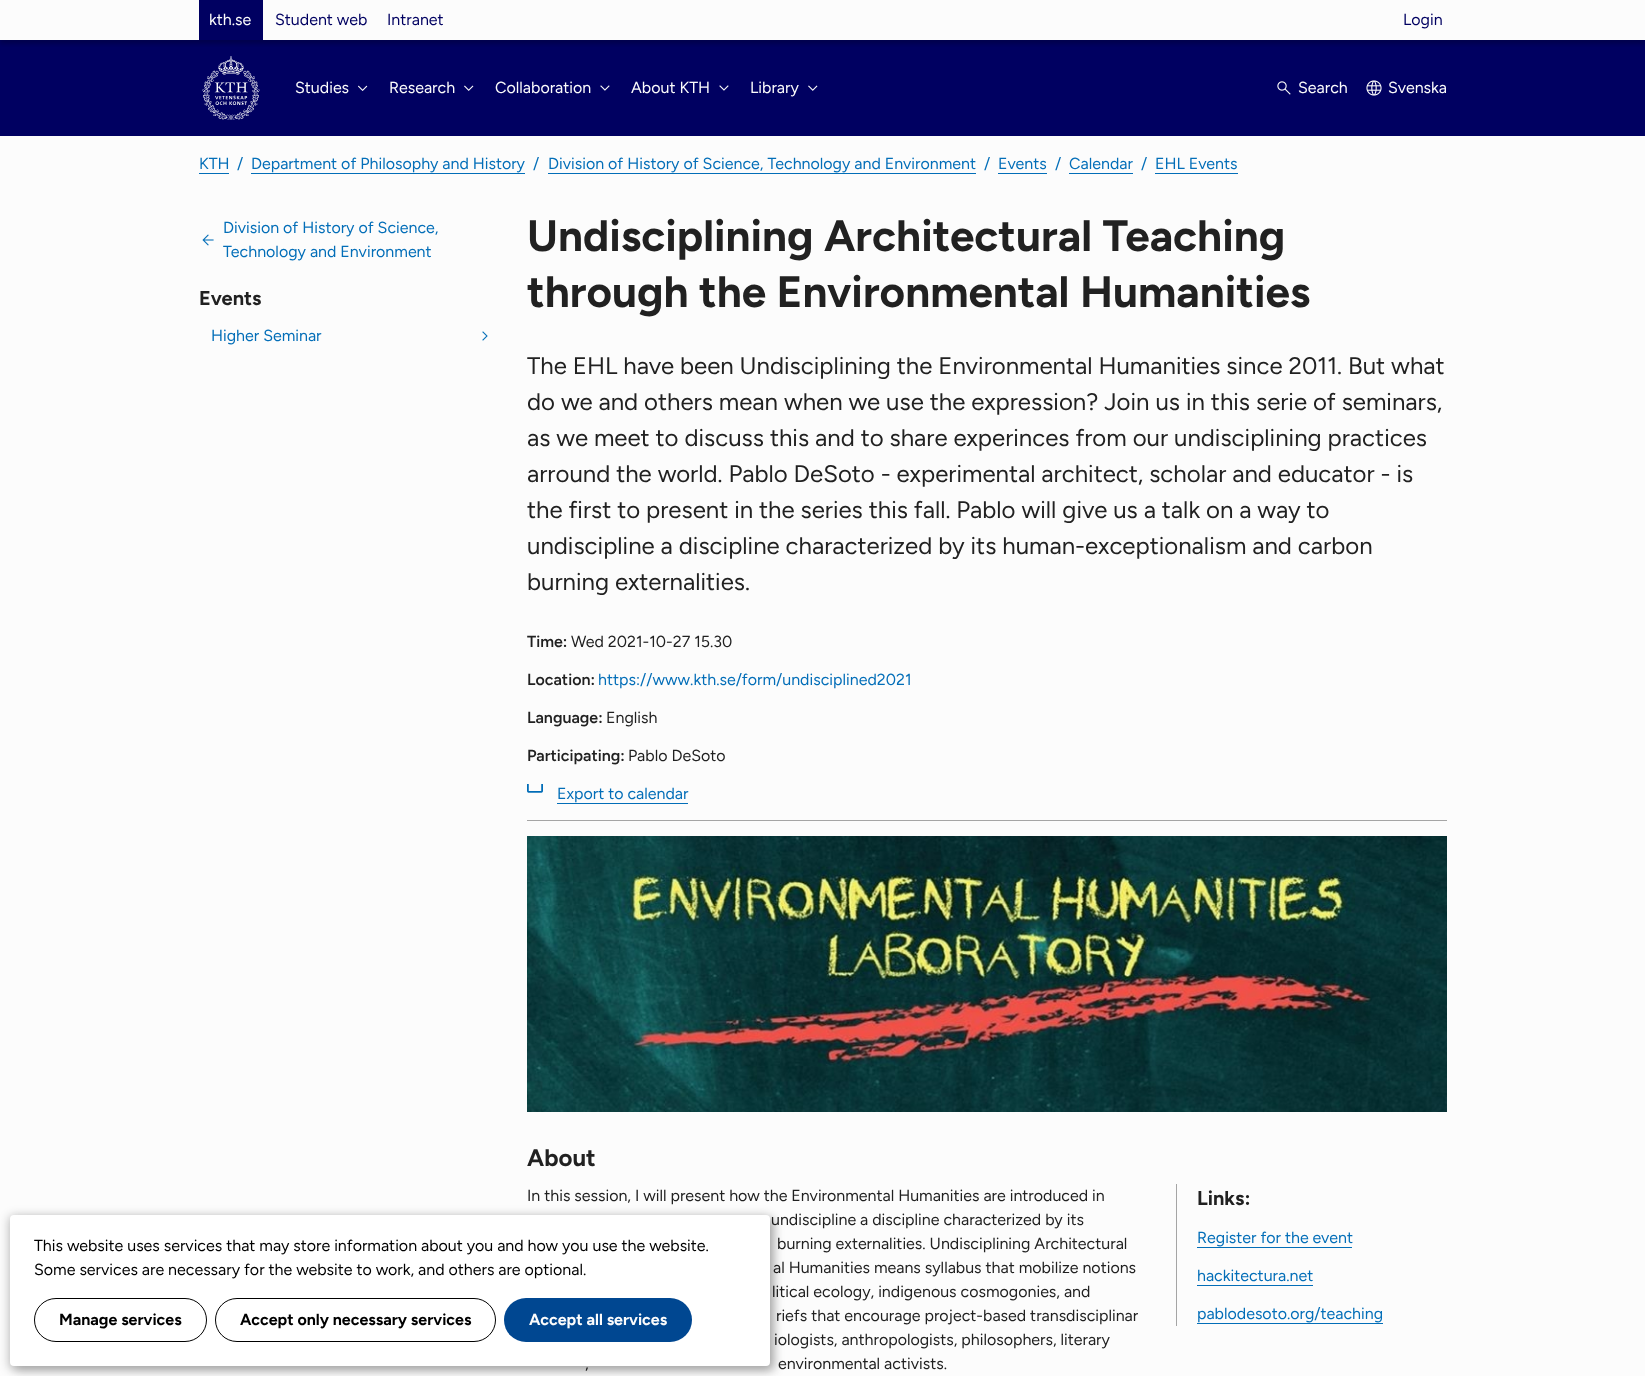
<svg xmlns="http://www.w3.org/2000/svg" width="1645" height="1376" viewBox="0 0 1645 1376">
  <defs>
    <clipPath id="clip1"><rect x="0" y="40" width="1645" height="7"/></clipPath>
  </defs>
  <rect width="100%" height="100%" fill="rgb(252,252,252)"/>
  <rect x="0" y="40" width="1645" height="96" fill="rgb(0,0,97)"/>
  <g clip-path="url(#clip1)">
    <rect x="0" y="4" width="1645" height="40" fill="rgba(0,0,0,0.2)" filter="blur(2px)"/>
  </g>
  <rect x="199" y="0" width="64" height="40" fill="rgb(0,0,97)"/>
  <text x="209" y="25" font-family="Figtree" font-size="16" fill="rgb(252,252,252)">kth.se</text>
  <g font-family="Figtree" font-size="16" fill="rgb(0,0,97)">
    <text x="275" y="25">Student web</text>
    <text x="387" y="25">Intranet</text>
    <text x="1403" y="25">Login</text>
  </g>
  <image x="202" y="56" width="58" height="64" href="pic1.png"/>
  <text x="295" y="93" font-family="Figtree" font-size="16" fill="rgb(252,252,252)">Studies</text>
  <image x="358" y="85" width="10" height="6" href="pic2.png"/>
  <text x="389" y="93" font-family="Figtree" font-size="16" fill="rgb(252,252,252)">Research</text>
  <image x="464" y="85" width="10" height="6" href="pic3.png"/>
  <text x="495" y="93" font-family="Figtree" font-size="16" fill="rgb(252,252,252)">Collaboration</text>
  <image x="600" y="85" width="10" height="6" href="pic4.png"/>
  <text x="631" y="93" font-family="Figtree" font-size="16" fill="rgb(252,252,252)">About KTH</text>
  <image x="719" y="85" width="10" height="6" href="pic5.png"/>
  <text x="750" y="93" font-family="Figtree" font-size="16" fill="rgb(252,252,252)">Library</text>
  <image x="808" y="85" width="10" height="6" href="pic6.png"/>
  <image x="1277" y="81" width="14" height="14" href="pic7.png"/>
  <text x="1298" y="93" font-family="Figtree" font-size="16" fill="rgb(252,252,252)">Search</text>
  <image x="1366" y="80" width="16" height="16" href="pic8.png"/>
  <text x="1388" y="93" font-family="Figtree" font-size="16" fill="rgb(252,252,252)">Svenska</text>
  <text x="199" y="169" font-family="Figtree" font-size="16" fill="rgb(3,110,184)">KTH</text>
  <rect x="199" y="173" width="30" height="1" fill="rgb(3,110,184)"/>
  <g font-family="Figtree" font-size="16" fill="rgb(3,110,184)">
    <text x="237" y="169">/</text>
    <text x="251" y="169">Department of Philosophy and History</text>
  </g>
  <rect x="251" y="173" width="274" height="1" fill="rgb(3,110,184)"/>
  <g font-family="Figtree" font-size="16" fill="rgb(3,110,184)">
    <text x="533" y="169">/</text>
    <text x="548" y="169">Division of History of Science, Technology and Environment</text>
  </g>
  <rect x="548" y="173" width="428" height="1" fill="rgb(3,110,184)"/>
  <g font-family="Figtree" font-size="16" fill="rgb(3,110,184)">
    <text x="984" y="169">/</text>
    <text x="998" y="169">Events</text>
  </g>
  <rect x="998" y="173" width="49" height="1" fill="rgb(3,110,184)"/>
  <g font-family="Figtree" font-size="16" fill="rgb(3,110,184)">
    <text x="1055" y="169">/</text>
    <text x="1069" y="169">Calendar</text>
  </g>
  <rect x="1069" y="173" width="64" height="1" fill="rgb(3,110,184)"/>
  <g font-family="Figtree" font-size="16" fill="rgb(3,110,184)">
    <text x="1141" y="169">/</text>
    <text x="1155" y="169">EHL Events</text>
  </g>
  <rect x="1155" y="173" width="83" height="1" fill="rgb(3,110,184)"/>
  <text x="223" y="233" font-family="Figtree" font-size="16" fill="rgb(3,110,184)">Division of History of Science,</text>
  <image x="202" y="234" width="12" height="12" href="pic9.png"/>
  <text x="223" y="257" font-family="Figtree" font-size="16" fill="rgb(3,110,184)">Technology and Environment</text>
  <text x="199" y="305" font-family="Figtree" font-size="20" font-weight="bold" fill="rgb(33,33,33)">Events</text>
  <text x="211" y="341" font-family="Figtree" font-size="16" fill="rgb(3,110,184)">Higher Seminar</text>
  <image x="482" y="331" width="6" height="10" href="pic10.png"/>
  <g font-family="Figtree" font-size="44" font-weight="bold" fill="rgb(33,33,33)">
    <text>
      <tspan x="527" y="251">Undisciplining Architectural Teaching</tspan>
      <tspan x="527" y="307">through the Environmental Humanities</tspan>
    </text>
  </g>
  <g font-family="Figtree" font-size="24" fill="rgb(33,33,33)">
    <text>
      <tspan x="527" y="374">The EHL have been Undisciplining the Environmental Humanities since 2011. But what</tspan>
      <tspan x="527" y="410">do we and others mean when we use the expression? Join us in this serie of seminars,</tspan>
      <tspan x="527" y="446">as we meet to discuss this and to share experinces from our undisciplining practices</tspan>
      <tspan x="527" y="482">arround the world. Pablo DeSoto - experimental architect, scholar and educator - is</tspan>
      <tspan x="527" y="518">the first to present in the series this fall. Pablo will give us a talk on a way to</tspan>
      <tspan x="527" y="554">undiscipline a discipline characterized by its human-exceptionalism and carbon</tspan>
      <tspan x="527" y="590">burning externalities.</tspan>
    </text>
  </g>
  <text x="527" y="647" font-family="Figtree" font-size="16" font-weight="600" fill="rgb(33,33,33)">Time:</text>
  <text x="571" y="647" font-family="Figtree" font-size="16" fill="rgb(33,33,33)">Wed 2021-10-27 15.30</text>
  <text x="527" y="685" font-family="Figtree" font-size="16" font-weight="600" fill="rgb(33,33,33)">Location:</text>
  <text x="598" y="685" font-family="Figtree" font-size="16" fill="rgb(3,110,184)">https://www.kth.se/form/undisciplined2021</text>
  <text x="527" y="723" font-family="Figtree" font-size="16" font-weight="600" fill="rgb(33,33,33)">Language:</text>
  <text x="606" y="723" font-family="Figtree" font-size="16" fill="rgb(33,33,33)">English</text>
  <text x="527" y="761" font-family="Figtree" font-size="16" font-weight="600" fill="rgb(33,33,33)">Participating:</text>
  <text x="628" y="761" font-family="Figtree" font-size="16" fill="rgb(33,33,33)">Pablo DeSoto</text>
  <image x="527" y="784" width="16" height="9" href="pic11.png"/>
  <text x="557" y="799" font-family="Figtree" font-size="16" fill="rgb(3,110,184)">Export to calendar</text>
  <rect x="557" y="803" width="131" height="1" fill="rgb(3,110,184)"/>
  <rect x="527" y="820" width="920" height="1" fill="rgb(165,165,165)"/>
  <image x="527" y="836" width="920" height="276" href="pic12.png"/>
  <text x="527" y="1166" font-family="Figtree" font-size="24" font-weight="bold" fill="rgb(33,33,33)">About</text>
  <g font-family="Figtree" font-size="16" fill="rgb(33,33,33)">
    <text x="527" y="1201">In this session, I will present how the Environmental Humanities are introduced in</text>
    <text x="771" y="1225">undiscipline a discipline characterized by its</text>
    <text x="777" y="1249">burning externalities. Undisciplining Architectural</text>
    <text x="773" y="1273">al Humanities means syllabus that mobilize notions</text>
    <text x="772" y="1297">litical ecology, indigenous cosmogonies, and</text>
    <text x="776" y="1321">riefs that encourage project-based transdisciplinar</text>
    <text x="774" y="1345">iologists, anthropologists, philosophers, literary</text>
    <text x="585" y="1369">,</text>
    <text x="778" y="1369">environmental activists.</text>
  </g>
  <rect x="1176" y="1184" width="1" height="142" fill="rgb(165,165,165)"/>
  <text x="1197" y="1205" font-family="Figtree" font-size="20" font-weight="bold" fill="rgb(33,33,33)">Links:</text>
  <text x="1197" y="1243" font-family="Figtree" font-size="16" fill="rgb(3,110,184)">Register for the event</text>
  <rect x="1197" y="1247" width="155" height="1" fill="rgb(3,110,184)"/>
  <text x="1197" y="1281" font-family="Figtree" font-size="16" fill="rgb(3,110,184)">hackitectura.net</text>
  <rect x="1197" y="1285" width="116" height="1" fill="rgb(3,110,184)"/>
  <text x="1197" y="1319" font-family="Figtree" font-size="16" fill="rgb(3,110,184)">pablodesoto.org/teaching</text>
  <rect x="1197" y="1323" width="186" height="1" fill="rgb(3,110,184)"/>
  <rect x="15" y="1220" width="760" height="151" rx="4" fill="rgba(0,0,0,0.19)" filter="blur(5px)"/>
  <rect x="8" y="1215" width="764" height="155" rx="6" fill="rgba(0,0,0,0.2)" filter="blur(5px)"/>
  <rect x="10" y="1215" width="760" height="151" rx="4" fill="rgb(255,255,255)"/>
  <g font-family="Figtree" font-size="16" fill="rgb(0,0,0)">
    <text>
      <tspan x="34" y="1251">This website uses services that may store information about you and how you use the website.</tspan>
      <tspan x="34" y="1275">Some services are necessary for the website to work, and others are optional.</tspan>
    </text>
  </g>
  <rect x="34.5" y="1298.5" width="172" height="43" rx="21.5" fill="none" stroke="rgb(0,0,0)"/>
  <text x="59" y="1325" font-family="Figtree" font-size="16" font-weight="bold" fill="rgb(0,0,0)">Manage services</text>
  <rect x="215.5" y="1298.5" width="280" height="43" rx="21.5" fill="none" stroke="rgb(0,0,0)"/>
  <text x="240" y="1325" font-family="Figtree" font-size="16" font-weight="bold" fill="rgb(0,0,0)">Accept only necessary services</text>
  <rect x="504" y="1298" width="188" height="44" rx="22" fill="rgb(0,71,145)"/>
  <text x="529" y="1325" font-family="Figtree" font-size="16" font-weight="bold" fill="rgb(252,252,252)">Accept all services</text>
</svg>
